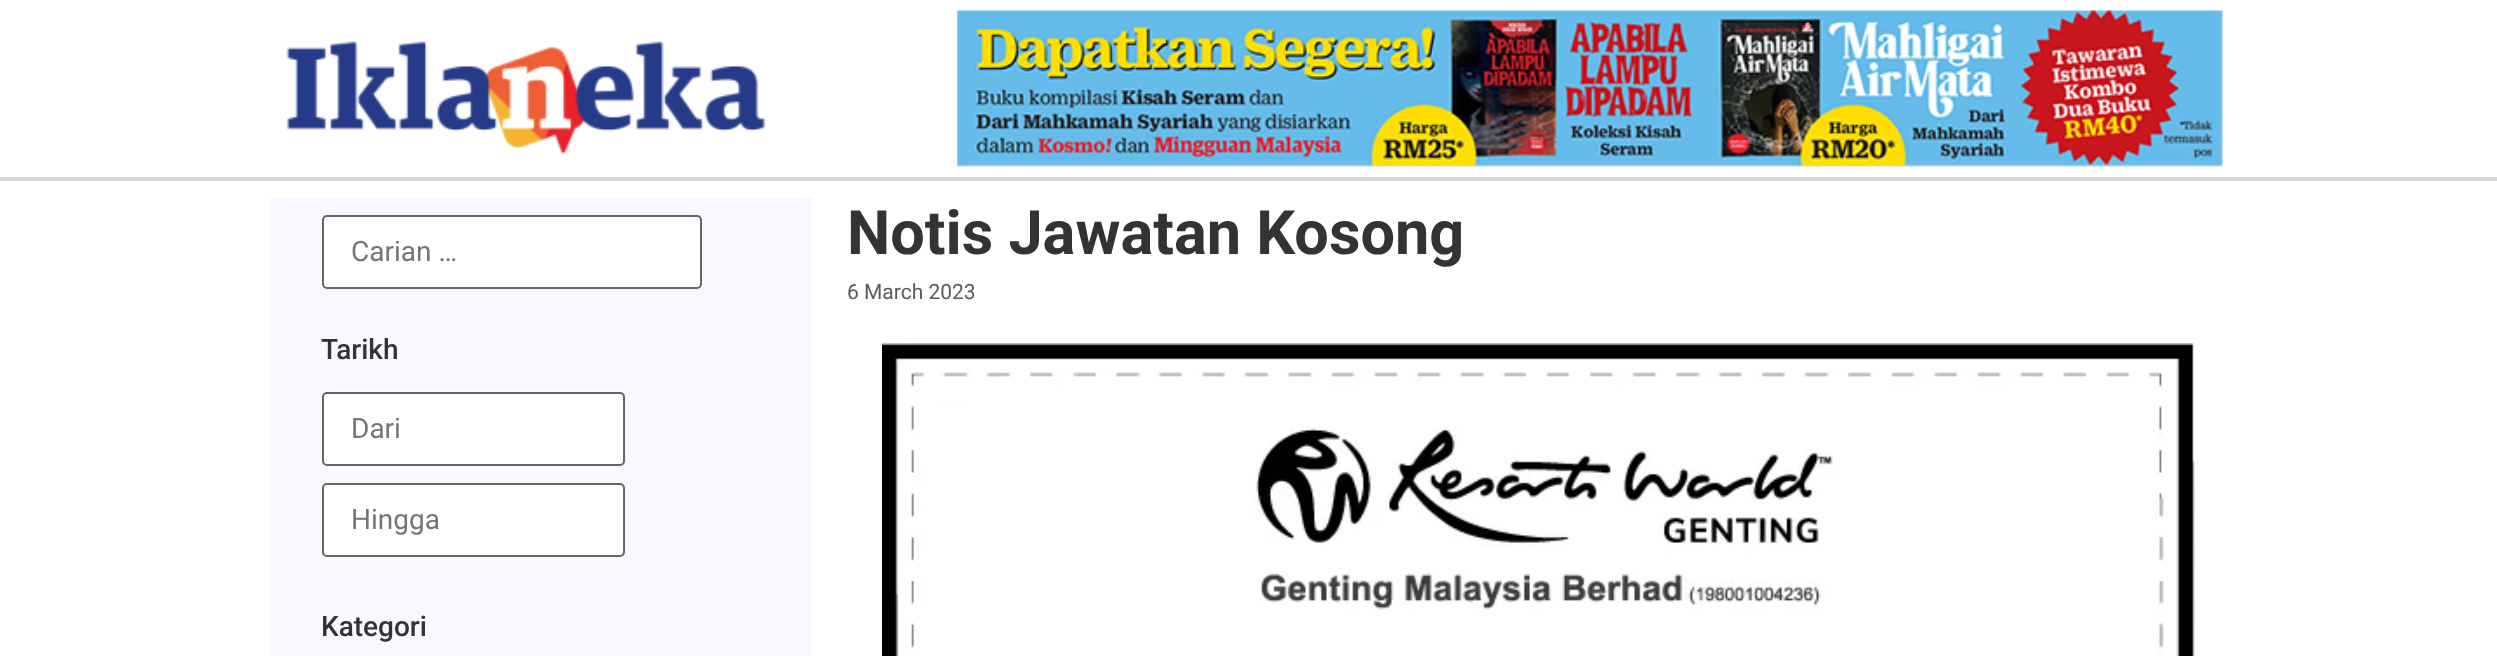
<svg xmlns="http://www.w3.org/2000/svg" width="2497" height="656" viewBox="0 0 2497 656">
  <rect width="100%" height="100%" fill="rgb(255,255,255)"/>
  <rect x="0" y="177" width="2497" height="4" fill="rgb(213,213,213)"/>
  <image x="286" y="41" width="480" height="114" href="pic1.png"/>
  <image x="957" y="10" width="1266" height="157" href="pic2.png"/>
  <rect x="270" y="198" width="542" height="458" fill="rgb(248,249,255)"/>
  <rect x="323" y="216" width="378" height="72" rx="4" fill="rgb(255,255,255)" stroke="rgb(102,102,102)" stroke-width="2"/>
  <text x="351" y="261" font-family="Roboto" font-size="28" fill="rgb(117,117,117)">Carian …</text>
  <text x="321" y="359" font-family="Roboto" font-size="28" font-weight="500" fill="rgb(51,51,51)">Tarikh</text>
  <rect x="323" y="393" width="301" height="72" rx="4" fill="rgb(255,255,255)" stroke="rgb(102,102,102)" stroke-width="2"/>
  <text x="351" y="438" font-family="Roboto" font-size="28" fill="rgb(117,117,117)">Dari</text>
  <rect x="323" y="484" width="301" height="72" rx="4" fill="rgb(255,255,255)" stroke="rgb(102,102,102)" stroke-width="2"/>
  <text x="351" y="529" font-family="Roboto" font-size="28" fill="rgb(117,117,117)">Hingga</text>
  <text x="321" y="636" font-family="Roboto" font-size="28" font-weight="500" fill="rgb(51,51,51)">Kategori</text>
  <text x="847" y="254" font-family="Roboto" font-size="61.25" font-weight="bold" fill="rgb(51,51,51)">Notis Jawatan Kosong</text>
  <text x="847" y="299" font-family="Roboto" font-size="21" fill="rgb(93,89,89)">6 March 2023</text>
  <image x="882" y="343" width="1313" height="313" href="pic3.png"/>
</svg>
